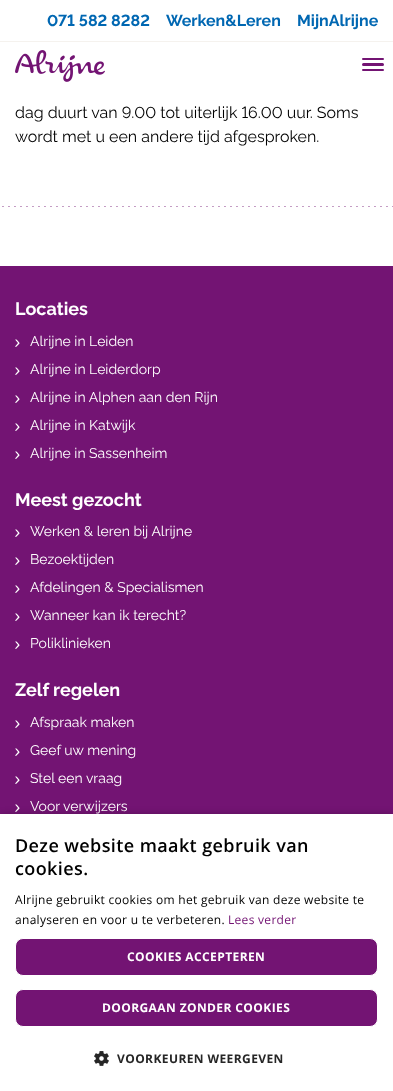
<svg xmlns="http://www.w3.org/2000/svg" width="393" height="1091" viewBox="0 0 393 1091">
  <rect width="100%" height="100%" fill="rgb(255,255,255)"/>
  <text x="47" y="26" font-family="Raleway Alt" font-size="16" font-weight="bold" fill="rgb(0,103,178)">071 582 8282</text>
  <g font-family="Raleway" font-size="16" font-weight="bold" fill="rgb(0,103,178)">
    <text x="166" y="26">Werken&amp;Leren</text>
    <text x="297" y="26">MijnAlrijne</text>
  </g>
  <rect x="0" y="41" width="393" height="1" fill="rgb(245,242,238)"/>
  <image x="15" y="50" width="90" height="32" href="pic1.png"/>
  <rect x="362" y="58" width="22" height="2" rx="1" fill="rgb(115,20,115)"/>
  <rect x="362" y="63" width="22" height="3" rx="1.5" fill="rgb(115,20,115)"/>
  <rect x="362" y="69" width="22" height="2" rx="1" fill="rgb(115,20,115)"/>
  <text x="15" y="118" font-family="Raleway Alt" font-size="16" fill="rgb(0,0,0)">dag duurt van 9.00 tot uiterlijk 16.00 uur. Soms</text>
  <text x="15" y="142" font-family="Raleway" font-size="16" fill="rgb(0,0,0)">wordt met u een andere tijd afgesproken.</text>
  <image x="2" y="206" width="391" height="1" href="pic2.png"/>
  <rect x="0" y="266" width="393" height="548" fill="rgb(115,20,115)"/>
  <text x="15" y="315" font-family="Raleway" font-size="18" font-weight="bold" fill="rgb(255,255,255)">Locaties</text>
  <path d="M15.5 340L18 343L15.5 346C15 346.5 15.5 347 16 347L19.5 343.5C20 343 16 338.5 15.5 339.5Z" fill="rgb(255,255,255)"/>
  <text x="30" y="346" font-family="Raleway" font-size="14" fill="rgb(255,255,255)">Alrijne in Leiden</text>
  <path d="M15.5 368L18 371L15.5 374C15 374.5 15.5 375 16 375L19.5 371.5C20 371 16 366.5 15.5 367.5Z" fill="rgb(255,255,255)"/>
  <text x="30" y="374" font-family="Raleway" font-size="14" fill="rgb(255,255,255)">Alrijne in Leiderdorp</text>
  <path d="M15.5 396L18 399L15.5 402C15 402.5 15.5 403 16 403L19.5 399.5C20 399 16 394.5 15.5 395.5Z" fill="rgb(255,255,255)"/>
  <text x="30" y="402" font-family="Raleway" font-size="14" fill="rgb(255,255,255)">Alrijne in Alphen aan den Rijn</text>
  <path d="M15.5 424L18 427L15.5 430C15 430.5 15.5 431 16 431L19.5 427.5C20 427 16 422.5 15.5 423.5Z" fill="rgb(255,255,255)"/>
  <text x="30" y="430" font-family="Raleway" font-size="14" fill="rgb(255,255,255)">Alrijne in Katwijk</text>
  <path d="M15.5 452L18 455L15.5 458C15 458.5 15.5 459 16 459L19.5 455.5C20 455 16 450.5 15.5 451.5Z" fill="rgb(255,255,255)"/>
  <text x="30" y="458" font-family="Raleway" font-size="14" fill="rgb(255,255,255)">Alrijne in Sassenheim</text>
  <text x="15" y="506" font-family="Raleway" font-size="18" font-weight="bold" fill="rgb(255,255,255)">Meest gezocht</text>
  <path d="M15.5 530L18 533L15.5 536C15 536.5 15.5 537 16 537L19.5 533.5C20 533 16 528.5 15.5 529.5Z" fill="rgb(255,255,255)"/>
  <text x="30" y="536" font-family="Raleway" font-size="14" fill="rgb(255,255,255)">Werken &amp; leren bij Alrijne</text>
  <path d="M15.5 558L18 561L15.5 564C15 564.5 15.5 565 16 565L19.5 561.5C20 561 16 556.5 15.5 557.5Z" fill="rgb(255,255,255)"/>
  <text x="30" y="564" font-family="Raleway" font-size="14" fill="rgb(255,255,255)">Bezoektijden</text>
  <path d="M15.5 586L18 589L15.5 592C15 592.5 15.5 593 16 593L19.5 589.5C20 589 16 584.5 15.5 585.5Z" fill="rgb(255,255,255)"/>
  <text x="30" y="592" font-family="Raleway" font-size="14" fill="rgb(255,255,255)">Afdelingen &amp; Specialismen</text>
  <path d="M15.5 614L18 617L15.5 620C15 620.5 15.5 621 16 621L19.5 617.5C20 617 16 612.5 15.5 613.5Z" fill="rgb(255,255,255)"/>
  <text x="30" y="620" font-family="Raleway" font-size="14" fill="rgb(255,255,255)">Wanneer kan ik terecht?</text>
  <path d="M15.5 642L18 645L15.5 648C15 648.5 15.5 649 16 649L19.5 645.5C20 645 16 640.5 15.5 641.5Z" fill="rgb(255,255,255)"/>
  <text x="30" y="648" font-family="Raleway" font-size="14" fill="rgb(255,255,255)">Poliklinieken</text>
  <text x="15" y="696" font-family="Raleway" font-size="18" font-weight="bold" fill="rgb(255,255,255)">Zelf regelen</text>
  <path d="M15.5 721L18 724L15.5 727C15 727.5 15.5 728 16 728L19.5 724.5C20 724 16 719.5 15.5 720.5Z" fill="rgb(255,255,255)"/>
  <text x="30" y="727" font-family="Raleway" font-size="14" fill="rgb(255,255,255)">Afspraak maken</text>
  <path d="M15.5 749L18 752L15.5 755C15 755.5 15.5 756 16 756L19.5 752.5C20 752 16 747.5 15.5 748.5Z" fill="rgb(255,255,255)"/>
  <text x="30" y="755" font-family="Raleway" font-size="14" fill="rgb(255,255,255)">Geef uw mening</text>
  <path d="M15.5 777L18 780L15.5 783C15 783.5 15.5 784 16 784L19.5 780.5C20 780 16 775.5 15.5 776.5Z" fill="rgb(255,255,255)"/>
  <text x="30" y="783" font-family="Raleway" font-size="14" fill="rgb(255,255,255)">Stel een vraag</text>
  <path d="M15.5 805L18 808L15.5 811C15 811.5 15.5 812 16 812L19.5 808.5C20 808 16 803.5 15.5 804.5Z" fill="rgb(255,255,255)"/>
  <text x="30" y="811" font-family="Raleway" font-size="14" fill="rgb(255,255,255)">Voor verwijzers</text>
  <rect x="1" y="816" width="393" height="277" fill="rgba(0,0,0,0.35)" filter="blur(4px)"/>
  <rect x="0" y="814" width="393" height="277" fill="rgb(255,255,255)"/>
  <g font-family="Open Sans" font-size="18" font-weight="600" letter-spacing="0.4" fill="rgb(0,0,0)">
    <text>
      <tspan x="15" y="852">Deze website maakt gebruik van</tspan>
      <tspan x="15" y="875">cookies.</tspan>
    </text>
  </g>
  <g font-family="Open Sans" font-size="12" letter-spacing="0.3" fill="rgb(0,0,0)">
    <text>
      <tspan x="15" y="904">Alrijne gebruikt cookies om het gebruik van deze website te</tspan>
      <tspan x="15" y="924">analyseren en voor u te verbeteren.</tspan>
    </text>
  </g>
  <text x="228" y="924" font-family="Open Sans" font-size="12" letter-spacing="0.3" fill="rgb(115,20,115)">Lees verder</text>
  <rect x="15.5" y="938.5" width="362" height="37" rx="7.5" fill="rgb(115,20,115)" stroke="rgb(255,255,255)"/>
  <text x="127" y="961" font-family="Open Sans" font-size="12" font-weight="bold" letter-spacing="0.4" fill="rgb(255,255,255)">COOKIES ACCEPTEREN</text>
  <rect x="15.5" y="989.5" width="362" height="37" rx="7.5" fill="rgb(115,20,115)" stroke="rgb(255,255,255)"/>
  <text x="102" y="1012" font-family="Open Sans" font-size="12" font-weight="bold" letter-spacing="0.4" fill="rgb(255,255,255)">DOORGAAN ZONDER COOKIES</text>
  <image x="94" y="1051" width="15" height="15" href="pic3.png"/>
  <text x="117" y="1063" font-family="Open Sans" font-size="12" font-weight="bold" letter-spacing="0.4" fill="rgb(38,38,38)">VOORKEUREN WEERGEVEN</text>
</svg>
